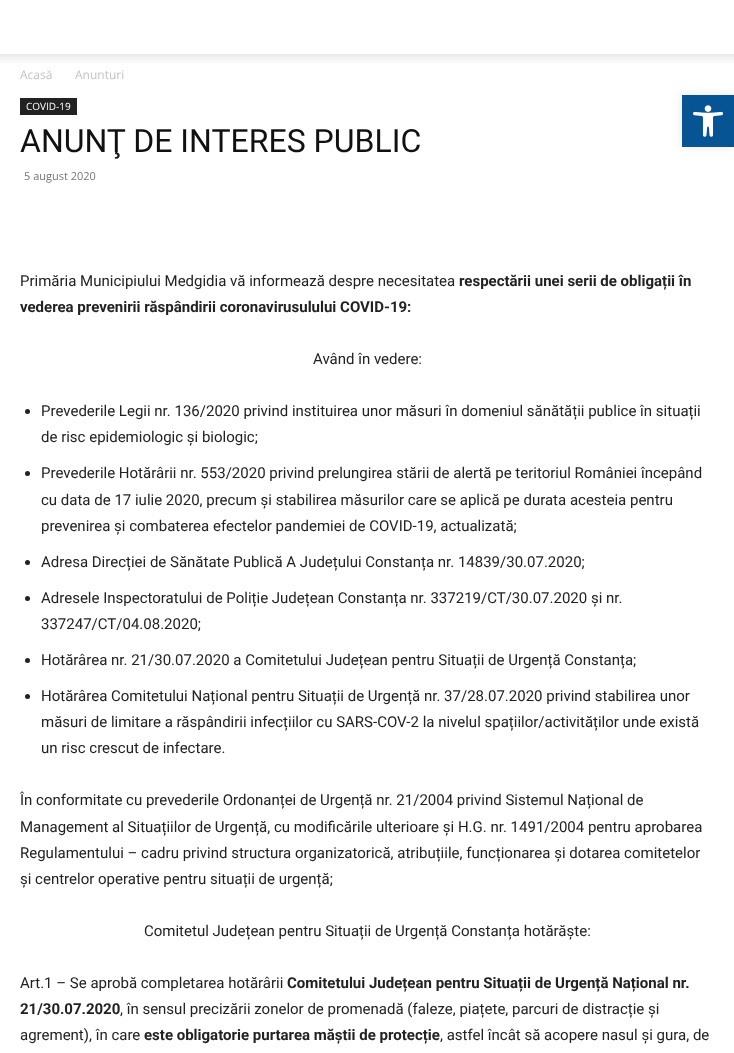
<svg xmlns="http://www.w3.org/2000/svg" width="734" height="1053" viewBox="0 0 734 1053">
  <rect width="100%" height="100%" fill="rgb(255,255,255)"/>
  <image x="0" y="54" width="734" height="9" href="pic1.png"/>
  <g font-family="Open Sans" font-size="12" fill="rgb(195,195,195)">
    <text x="20" y="79">Acasă</text>
    <text x="75" y="79">Anunturi</text>
  </g>
  <rect x="20" y="98" width="57" height="17" fill="rgb(34,34,34)"/>
  <text x="26" y="110" font-family="Open Sans" font-size="10" fill="rgb(255,255,255)">COVID-19</text>
  <text x="20" y="152" font-family="Roboto" font-size="32" fill="rgb(17,17,17)">ANUNŢ DE INTERES PUBLIC</text>
  <text x="24" y="180" font-family="Open Sans" font-size="11" fill="rgb(118,118,118)">5 august 2020</text>
  <text x="20" y="286" font-family="Roboto" font-size="15" fill="rgb(34,34,34)">Primăria Municipiului Medgidia vă informează despre necesitatea</text>
  <g font-family="Roboto" font-size="15" font-weight="bold" fill="rgb(34,34,34)">
    <text x="459" y="286">respectării unei serii de obligații în</text>
    <text x="20" y="312">vederea prevenirii răspândirii coronavirusulului COVID-19:</text>
  </g>
  <text x="313" y="364" font-family="Roboto" font-size="15" fill="rgb(34,34,34)">Având în vedere:</text>
  <circle cx="27.5" cy="411.5" r="2.5" fill="rgb(34,34,34)"/>
  <g font-family="Roboto" font-size="15" fill="rgb(34,34,34)">
    <text>
      <tspan x="41" y="416">Prevederile Legii nr. 136/2020 privind instituirea unor măsuri în domeniul sănătății publice în situații</tspan>
      <tspan x="41" y="442">de risc epidemiologic și biologic;</tspan>
    </text>
  </g>
  <circle cx="27.5" cy="473.5" r="2.5" fill="rgb(34,34,34)"/>
  <g font-family="Roboto" font-size="15" fill="rgb(34,34,34)">
    <text>
      <tspan x="41" y="478">Prevederile Hotărârii nr. 553/2020 privind prelungirea stării de alertă pe teritoriul României începând</tspan>
      <tspan x="41" y="505">cu data de 17 iulie 2020, precum și stabilirea măsurilor care se aplică pe durata acesteia pentru</tspan>
      <tspan x="41" y="531">prevenirea și combaterea efectelor pandemiei de COVID-19, actualizată;</tspan>
    </text>
  </g>
  <circle cx="27.5" cy="562.5" r="2.5" fill="rgb(34,34,34)"/>
  <text x="41" y="567" font-family="Roboto" font-size="15" fill="rgb(34,34,34)">Adresa Direcției de Sănătate Publică A Județului Constanța nr. 14839/30.07.2020;</text>
  <circle cx="27.5" cy="598.5" r="2.5" fill="rgb(34,34,34)"/>
  <g font-family="Roboto" font-size="15" fill="rgb(34,34,34)">
    <text>
      <tspan x="41" y="603">Adresele Inspectoratului de Poliție Județean Constanța nr. 337219/CT/30.07.2020 și nr.</tspan>
      <tspan x="41" y="629">337247/CT/04.08.2020;</tspan>
    </text>
  </g>
  <circle cx="27.5" cy="660.5" r="2.5" fill="rgb(34,34,34)"/>
  <text x="41" y="665" font-family="Roboto" font-size="15" fill="rgb(34,34,34)">Hotărârea nr. 21/30.07.2020 a Comitetului Județean pentru Situații de Urgență Constanța;</text>
  <circle cx="27.5" cy="696.5" r="2.5" fill="rgb(34,34,34)"/>
  <g font-family="Roboto" font-size="15" fill="rgb(34,34,34)">
    <text>
      <tspan x="41" y="701">Hotărârea Comitetului Național pentru Situații de Urgență nr. 37/28.07.2020 privind stabilirea unor</tspan>
      <tspan x="41" y="727">măsuri de limitare a răspândirii infecțiilor cu SARS-COV-2 la nivelul spațiilor/activităților unde există</tspan>
      <tspan x="41" y="753">un risc crescut de infectare.</tspan>
    </text>
    <text>
      <tspan x="20" y="805">În conformitate cu prevederile Ordonanței de Urgență nr. 21/2004 privind Sistemul Național de</tspan>
      <tspan x="20" y="832">Management al Situațiilor de Urgență, cu modificările ulterioare și H.G. nr. 1491/2004 pentru aprobarea</tspan>
      <tspan x="20" y="858">Regulamentului – cadru privind structura organizatorică, atribuțiile, funcționarea și dotarea comitetelor</tspan>
      <tspan x="20" y="884">și centrelor operative pentru situații de urgență;</tspan>
    </text>
    <text x="144" y="936">Comitetul Județean pentru Situații de Urgență Constanța hotărăște:</text>
    <text x="20" y="988">Art.1 – Se aprobă completarea hotărârii</text>
  </g>
  <g font-family="Roboto" font-size="15" font-weight="bold" fill="rgb(34,34,34)">
    <text x="287" y="988">Comitetului Județean pentru Situații de Urgență Național nr.</text>
    <text x="20" y="1014">21/30.07.2020</text>
  </g>
  <g font-family="Roboto" font-size="15" fill="rgb(34,34,34)">
    <text x="120" y="1014">, în sensul precizării zonelor de promenadă (faleze, piațete, parcuri de distracție și</text>
    <text x="20" y="1040">agrement), în care</text>
  </g>
  <text x="144" y="1040" font-family="Roboto" font-size="15" font-weight="bold" fill="rgb(34,34,34)">este obligatorie purtarea măștii de protecție</text>
  <text x="440" y="1040" font-family="Roboto" font-size="15" fill="rgb(34,34,34)">, astfel încât să acopere nasul și gura, de</text>
  <rect x="682" y="95" width="52" height="52" fill="rgba(0,0,0,0.1)" filter="blur(5px)"/>
  <rect x="682" y="95" width="52" height="52" fill="rgb(6,84,148)"/>
  <image x="693" y="105" width="30" height="32" href="pic2.png"/>
</svg>
